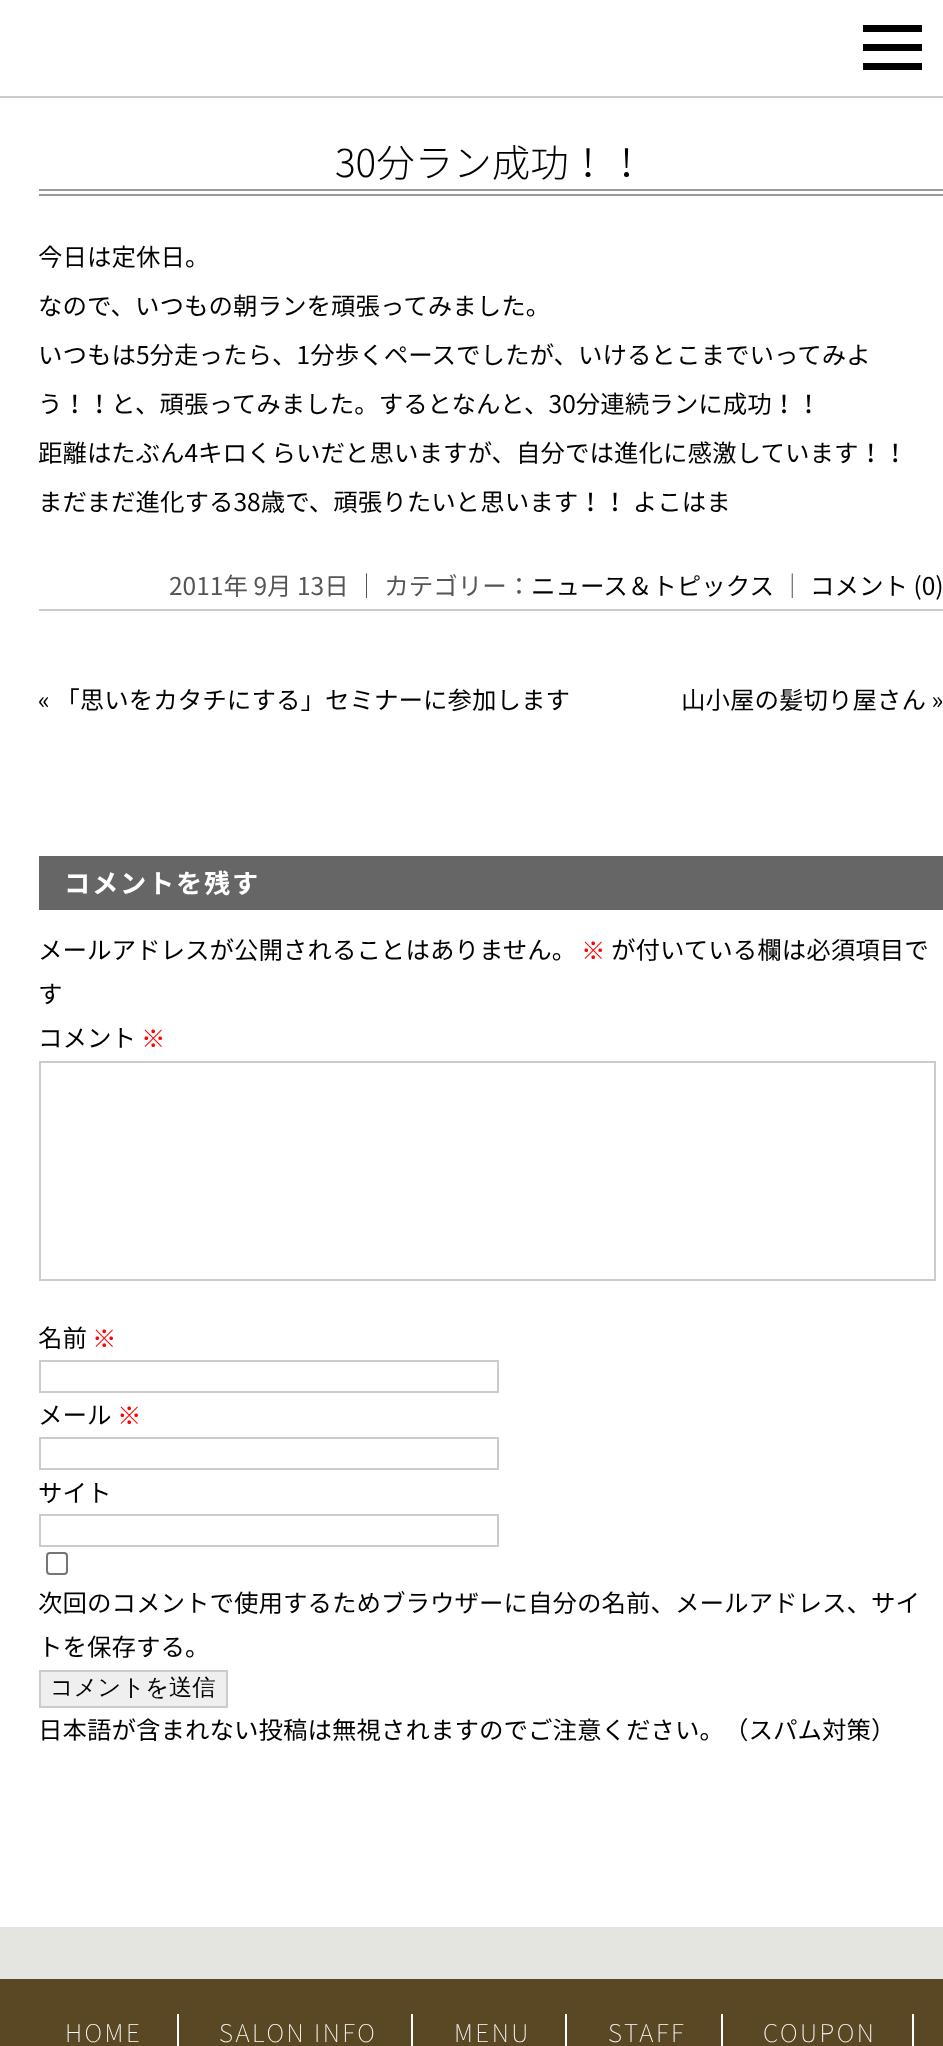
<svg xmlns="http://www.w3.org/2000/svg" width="943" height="2046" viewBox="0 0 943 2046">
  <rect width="100%" height="100%" fill="rgb(255,255,255)"/>
  <rect x="0" y="96" width="943" height="2" fill="rgb(204,204,204)"/>
  <rect x="863" y="25" width="59" height="7" fill="rgb(0,0,0)"/>
  <rect x="863" y="44" width="59" height="7" fill="rgb(0,0,0)"/>
  <rect x="863" y="63" width="59" height="7" fill="rgb(0,0,0)"/>
  <rect x="39" y="189" width="904" height="2" fill="rgb(153,153,153)"/>
  <rect x="39" y="194" width="904" height="2" fill="rgb(153,153,153)"/>
  <text x="335" y="177" font-family="Noto Sans JP" font-size="38.5" font-weight="300" fill="rgb(0,0,0)">30分ラン成功！！</text>
  <g font-family="Noto Sans JP" font-size="24.5" fill="rgb(0,0,0)">
    <text x="38" y="266">今日は定休日。</text>
    <text x="38" y="315">なので、いつもの朝ランを頑張ってみました。</text>
    <text x="38" y="364">いつもは5分走ったら、1分歩くペースでしたが、いけるとこまでいってみよ</text>
    <text x="38" y="413">う！！と、頑張ってみました。するとなんと、30分連続ランに成功！！</text>
    <text x="38" y="462">距離はたぶん4キロくらいだと思いますが、自分では進化に感激しています！！</text>
    <text x="38" y="511">まだまだ進化する38歳で、頑張りたいと思います！！ よこはま</text>
  </g>
  <rect x="39" y="609" width="904" height="2" fill="rgb(204,204,204)"/>
  <text x="169" y="595" font-family="Noto Sans JP" font-size="24.5" fill="rgb(85,85,85)">2011年 9月 13日 ｜ カテゴリー：</text>
  <text x="531" y="595" font-family="Noto Sans JP" font-size="24.5" fill="rgb(0,0,0)">ニュース＆トピックス</text>
  <text x="780" y="595" font-family="Noto Sans JP" font-size="24.5" fill="rgb(85,85,85)">｜</text>
  <g font-family="Noto Sans JP" font-size="24.5" fill="rgb(0,0,0)">
    <text x="810" y="595">コメント (0)</text>
    <text x="38" y="709">« 「思いをカタチにする」セミナーに参加します</text>
    <text x="681" y="709">山小屋の髪切り屋さん »</text>
  </g>
  <rect x="39" y="856" width="904" height="54" fill="rgb(102,102,102)"/>
  <text x="64" y="893" font-family="Noto Sans JP" font-size="26.25" font-weight="bold" letter-spacing="1.75" fill="rgb(255,255,255)">コメントを残す</text>
  <text x="38" y="959" font-family="Noto Sans JP" font-size="24.5" fill="rgb(0,0,0)">メールアドレスが公開されることはありません。</text>
  <text x="581" y="959" font-family="WenQuanYi Zen Hei" font-size="24.5" font-weight="500" fill="rgb(255,0,0)">※</text>
  <g font-family="Noto Sans JP" font-size="24.5" fill="rgb(0,0,0)">
    <text x="611" y="959">が付いている欄は必須項目で</text>
    <text>
      <tspan x="38" y="1003">す</tspan>
      <tspan x="38" y="1047">コメント</tspan>
    </text>
  </g>
  <text x="141" y="1047" font-family="WenQuanYi Zen Hei" font-size="24.5" font-weight="500" fill="rgb(255,0,0)">※</text>
  <rect x="40" y="1062" width="895" height="218" fill="none" stroke="rgb(204,204,204)" stroke-width="2"/>
  <text x="38" y="1347" font-family="Noto Sans JP" font-size="24.5" fill="rgb(0,0,0)">名前</text>
  <text x="92" y="1347" font-family="WenQuanYi Zen Hei" font-size="24.5" font-weight="500" fill="rgb(255,0,0)">※</text>
  <rect x="40" y="1361" width="458" height="31" fill="none" stroke="rgb(204,204,204)" stroke-width="2"/>
  <text x="38" y="1424" font-family="Noto Sans JP" font-size="24.5" fill="rgb(0,0,0)">メール</text>
  <text x="117" y="1424" font-family="WenQuanYi Zen Hei" font-size="24.5" font-weight="500" fill="rgb(255,0,0)">※</text>
  <rect x="40" y="1438" width="458" height="31" fill="none" stroke="rgb(204,204,204)" stroke-width="2"/>
  <text x="38" y="1502" font-family="Noto Sans JP" font-size="24.5" fill="rgb(0,0,0)">サイト</text>
  <rect x="40" y="1515" width="458" height="31" fill="none" stroke="rgb(204,204,204)" stroke-width="2"/>
  <rect x="47" y="1553" width="20" height="21" rx="3" fill="none" stroke="rgb(118,118,118)" stroke-width="2"/>
  <g font-family="Noto Sans JP" font-size="24.5" fill="rgb(0,0,0)">
    <text>
      <tspan x="38" y="1612">次回のコメントで使用するためブラウザーに自分の名前、メールアドレス、サイ</tspan>
      <tspan x="38" y="1656">トを保存する。</tspan>
    </text>
  </g>
  <rect x="40" y="1671" width="187" height="36" fill="rgb(239,239,239)" stroke="rgb(204,204,204)" stroke-width="2"/>
  <text x="50" y="1695" font-family="WenQuanYi Zen Hei" font-size="23.25" font-weight="500" fill="rgb(0,0,0)">コメントを送信</text>
  <text x="38" y="1739" font-family="Noto Sans JP" font-size="24.5" fill="rgb(0,0,0)">日本語が含まれない投稿は無視されますのでご注意ください。（スパム対策）</text>
  <rect x="0" y="1927" width="943" height="52" fill="rgb(228,229,225)"/>
  <rect x="0" y="1979" width="943" height="67" fill="rgb(90,72,36)"/>
  <rect x="177" y="2014" width="2" height="32" fill="rgb(255,255,255)"/>
  <text x="65" y="2042" font-family="Noto Sans JP" font-size="24.5" font-weight="100" letter-spacing="2.5" fill="rgb(255,255,255)">HOME</text>
  <rect x="411" y="2014" width="2" height="32" fill="rgb(255,255,255)"/>
  <text x="219" y="2042" font-family="Noto Sans JP" font-size="24.5" font-weight="100" letter-spacing="2.5" fill="rgb(255,255,255)">SALON INFO</text>
  <rect x="565" y="2014" width="2" height="32" fill="rgb(255,255,255)"/>
  <text x="454" y="2042" font-family="Noto Sans JP" font-size="24.5" font-weight="100" letter-spacing="2.5" fill="rgb(255,255,255)">MENU</text>
  <rect x="721" y="2014" width="2" height="32" fill="rgb(255,255,255)"/>
  <text x="608" y="2042" font-family="Noto Sans JP" font-size="24.5" font-weight="100" letter-spacing="2.5" fill="rgb(255,255,255)">STAFF</text>
  <rect x="912" y="2014" width="2" height="32" fill="rgb(255,255,255)"/>
  <text x="763" y="2042" font-family="Noto Sans JP" font-size="24.5" font-weight="100" letter-spacing="2.5" fill="rgb(255,255,255)">COUPON</text>
</svg>
